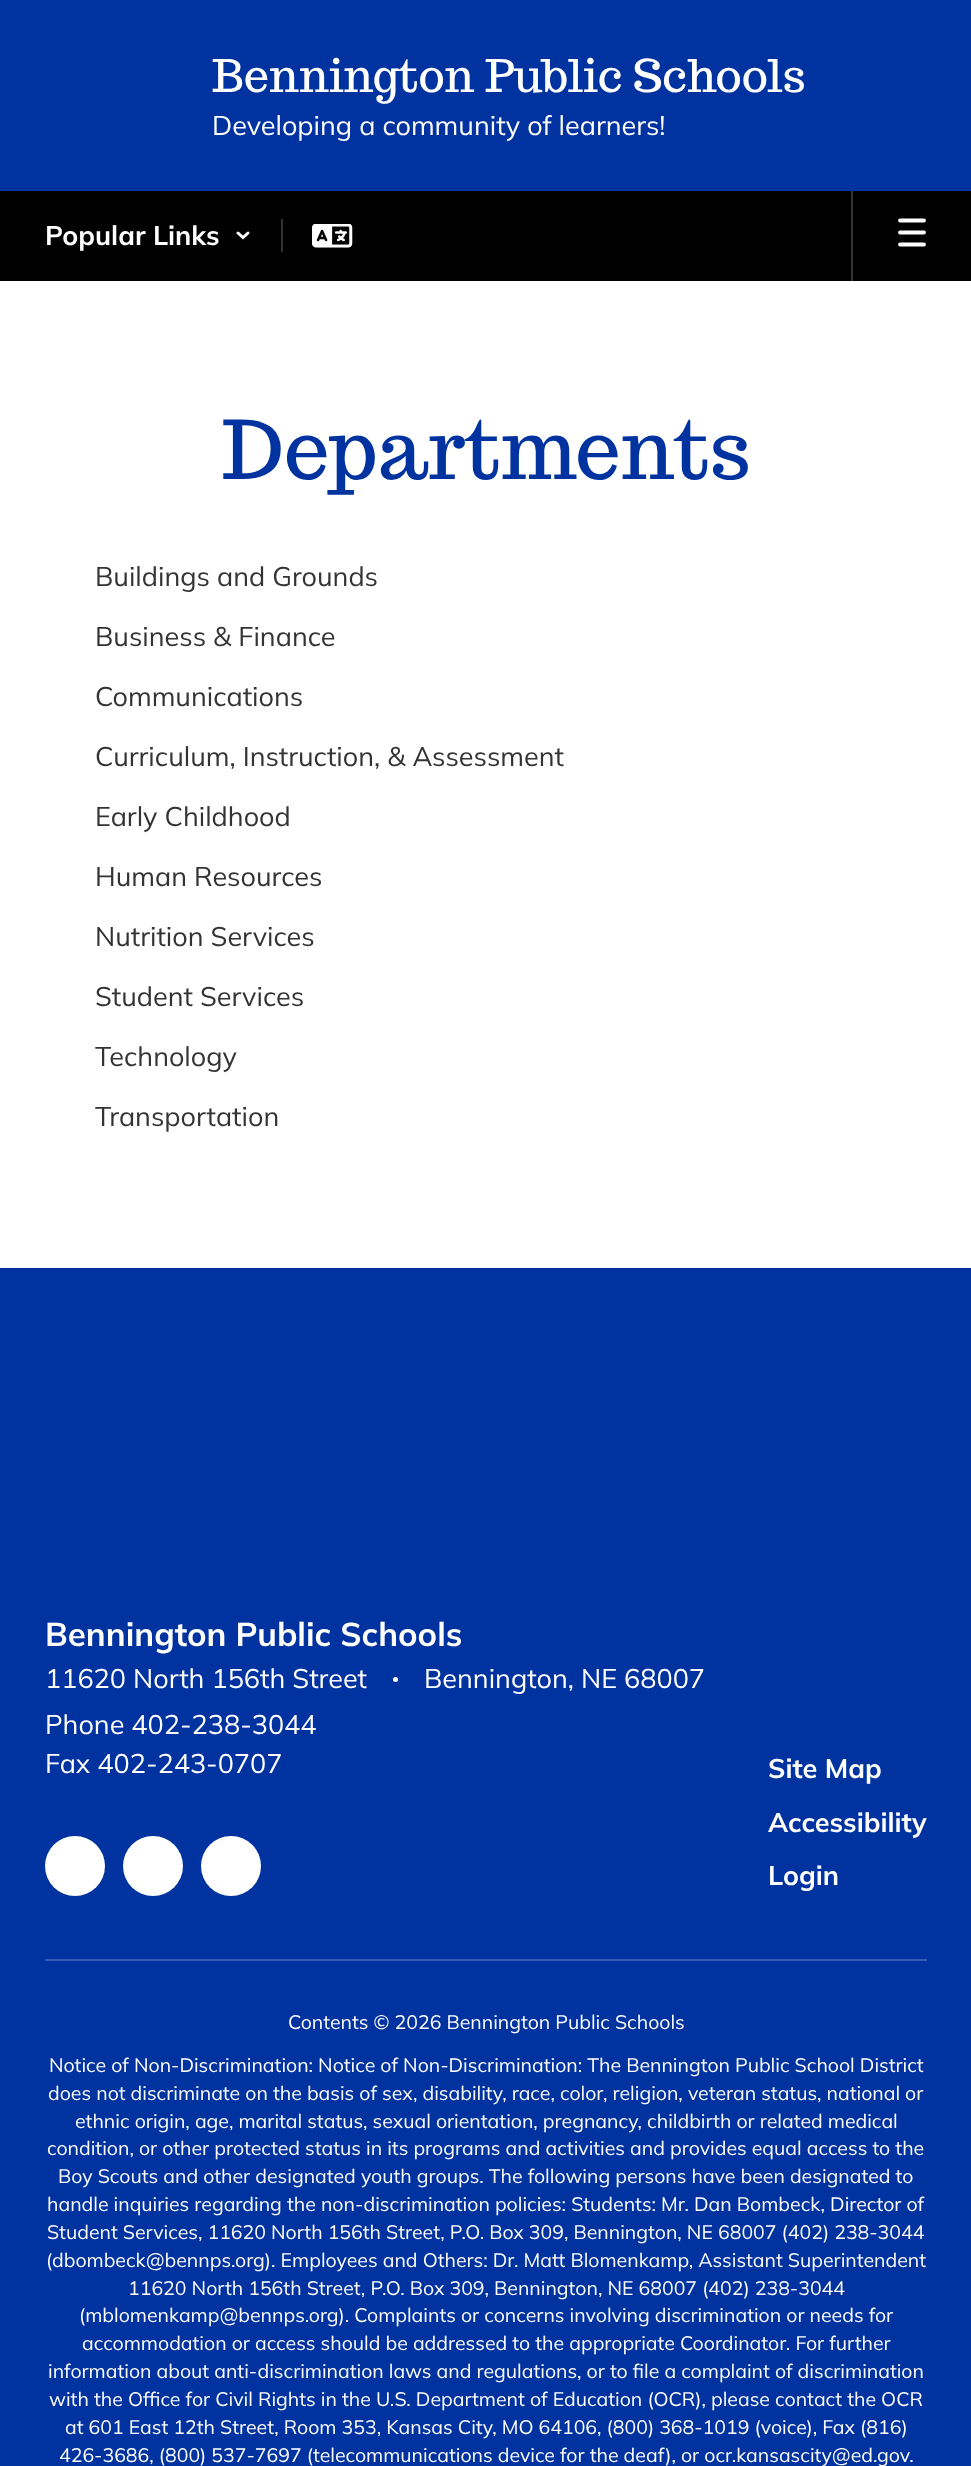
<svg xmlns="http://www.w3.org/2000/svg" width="971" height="2466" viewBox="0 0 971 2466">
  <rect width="100%" height="100%" fill="rgb(255,255,255)"/>
  <rect x="0" y="0" width="971" height="191" fill="rgb(0,51,160)"/>
  <text x="212" y="92" font-family="Trocchi" font-size="45" fill="rgb(255,255,255)">Bennington Public Schools</text>
  <text x="212" y="135" font-family="Mulish" font-size="27" fill="rgb(255,255,255)">Developing a community of learners!</text>
  <rect x="0" y="191" width="971" height="90" fill="rgb(0,0,0)"/>
  <text x="45" y="245" font-family="Mulish" font-size="27" font-weight="bold" fill="rgb(255,255,255)">Popular Links</text>
  <path d="M238 233L243 237.5L248 233" fill="none" stroke="rgb(255,255,255)" stroke-width="3" stroke-linecap="round"/>
  <rect x="281" y="219" width="2" height="33" fill="rgb(51,51,51)"/>
  <image x="312" y="224" width="41" height="24" href="pic1.png"/>
  <rect x="851" y="191" width="2" height="90" fill="rgb(51,51,51)"/>
  <path d="M900 220.5H924M900 232.5H924M900 244.5H924" fill="none" stroke="rgb(255,255,255)" stroke-width="3.8" stroke-linecap="round"/>
  <text x="222" y="479" font-family="Trocchi" font-size="81" fill="rgb(0,51,160)">Departments</text>
  <g font-family="Mulish" font-size="27" fill="rgb(51,51,51)">
    <text x="95" y="586">Buildings and Grounds</text>
    <text x="95" y="646">Business &amp; Finance</text>
    <text x="95" y="706">Communications</text>
    <text x="95" y="766">Curriculum, Instruction, &amp; Assessment</text>
    <text x="95" y="826">Early Childhood</text>
    <text x="95" y="886">Human Resources</text>
    <text x="95" y="946">Nutrition Services</text>
    <text x="95" y="1006">Student Services</text>
    <text x="95" y="1066">Technology</text>
    <text x="95" y="1126">Transportation</text>
  </g>
  <rect x="0" y="1268" width="971" height="1198" fill="rgb(0,51,160)"/>
  <text x="45" y="1646" font-family="Mulish" font-size="33" font-weight="bold" fill="rgb(255,255,255)">Bennington Public Schools</text>
  <text x="45" y="1688" font-family="Mulish" font-size="27" fill="rgb(255,255,255)">11620 North 156th Street</text>
  <circle cx="395.5" cy="1679.5" r="2.5" fill="rgb(255,255,255)"/>
  <g font-family="Mulish" font-size="27" fill="rgb(255,255,255)">
    <text x="424" y="1688">Bennington, NE 68007</text>
    <text>
      <tspan x="45" y="1734">Phone 402-238-3044</tspan>
      <tspan x="45" y="1773">Fax 402-243-0707</tspan>
    </text>
  </g>
  <circle cx="75" cy="1866" r="30" fill="rgb(255,255,255)"/>
  <circle cx="153" cy="1866" r="30" fill="rgb(255,255,255)"/>
  <circle cx="231" cy="1866" r="30" fill="rgb(255,255,255)"/>
  <g font-family="Mulish" font-size="27" font-weight="bold" fill="rgb(255,255,255)">
    <text x="768" y="1778">Site Map</text>
    <text>
      <tspan x="768" y="1832">Accessibility</tspan>
      <tspan x="768" y="1885">Login</tspan>
    </text>
  </g>
  <rect x="45" y="1959" width="882" height="2" fill="rgb(51,92,179)"/>
  <g font-family="Mulish" font-size="19.5" fill="rgb(255,255,255)">
    <text x="288" y="2029">Contents © 2026 Bennington Public Schools</text>
    <text x="49" y="2072">Notice of Non-Discrimination: Notice of Non-Discrimination: The Bennington Public School District</text>
    <text x="48" y="2100">does not discriminate on the basis of sex, disability, race, color, religion, veteran status, national or</text>
    <text x="75" y="2128">ethnic origin, age, marital status, sexual orientation, pregnancy, childbirth or related medical</text>
    <text x="47" y="2155">condition, or other protected status in its programs and activities and provides equal access to the</text>
    <text x="58" y="2183">Boy Scouts and other designated youth groups. The following persons have been designated to</text>
    <text>
      <tspan x="47" y="2211">handle inquiries regarding the non-discrimination policies: Students: Mr. Dan Bombeck, Director of</tspan>
      <tspan x="47" y="2239">Student Services, 11620 North 156th Street, P.O. Box 309, Bennington, NE 68007 (402) 238-3044</tspan>
    </text>
    <text x="46" y="2267">(dbombeck@bennps.org). Employees and Others: Dr. Matt Blomenkamp, Assistant Superintendent</text>
    <text x="128" y="2295">11620 North 156th Street, P.O. Box 309, Bennington, NE 68007 (402) 238-3044</text>
    <text x="79" y="2322">(mblomenkamp@bennps.org). Complaints or concerns involving discrimination or needs for</text>
    <text x="82" y="2350">accommodation or access should be addressed to the appropriate Coordinator. For further</text>
    <text x="48" y="2378">information about anti-discrimination laws and regulations, or to file a complaint of discrimination</text>
    <text x="49" y="2406">with the Office for Civil Rights in the U.S. Department of Education (OCR), please contact the OCR</text>
    <text x="65" y="2434">at 601 East 12th Street, Room 353, Kansas City, MO 64106, (800) 368-1019 (voice), Fax (816)</text>
    <text x="59" y="2462">426-3686, (800) 537-7697 (telecommunications device for the deaf), or ocr.kansascity@ed.gov.</text>
  </g>
</svg>
